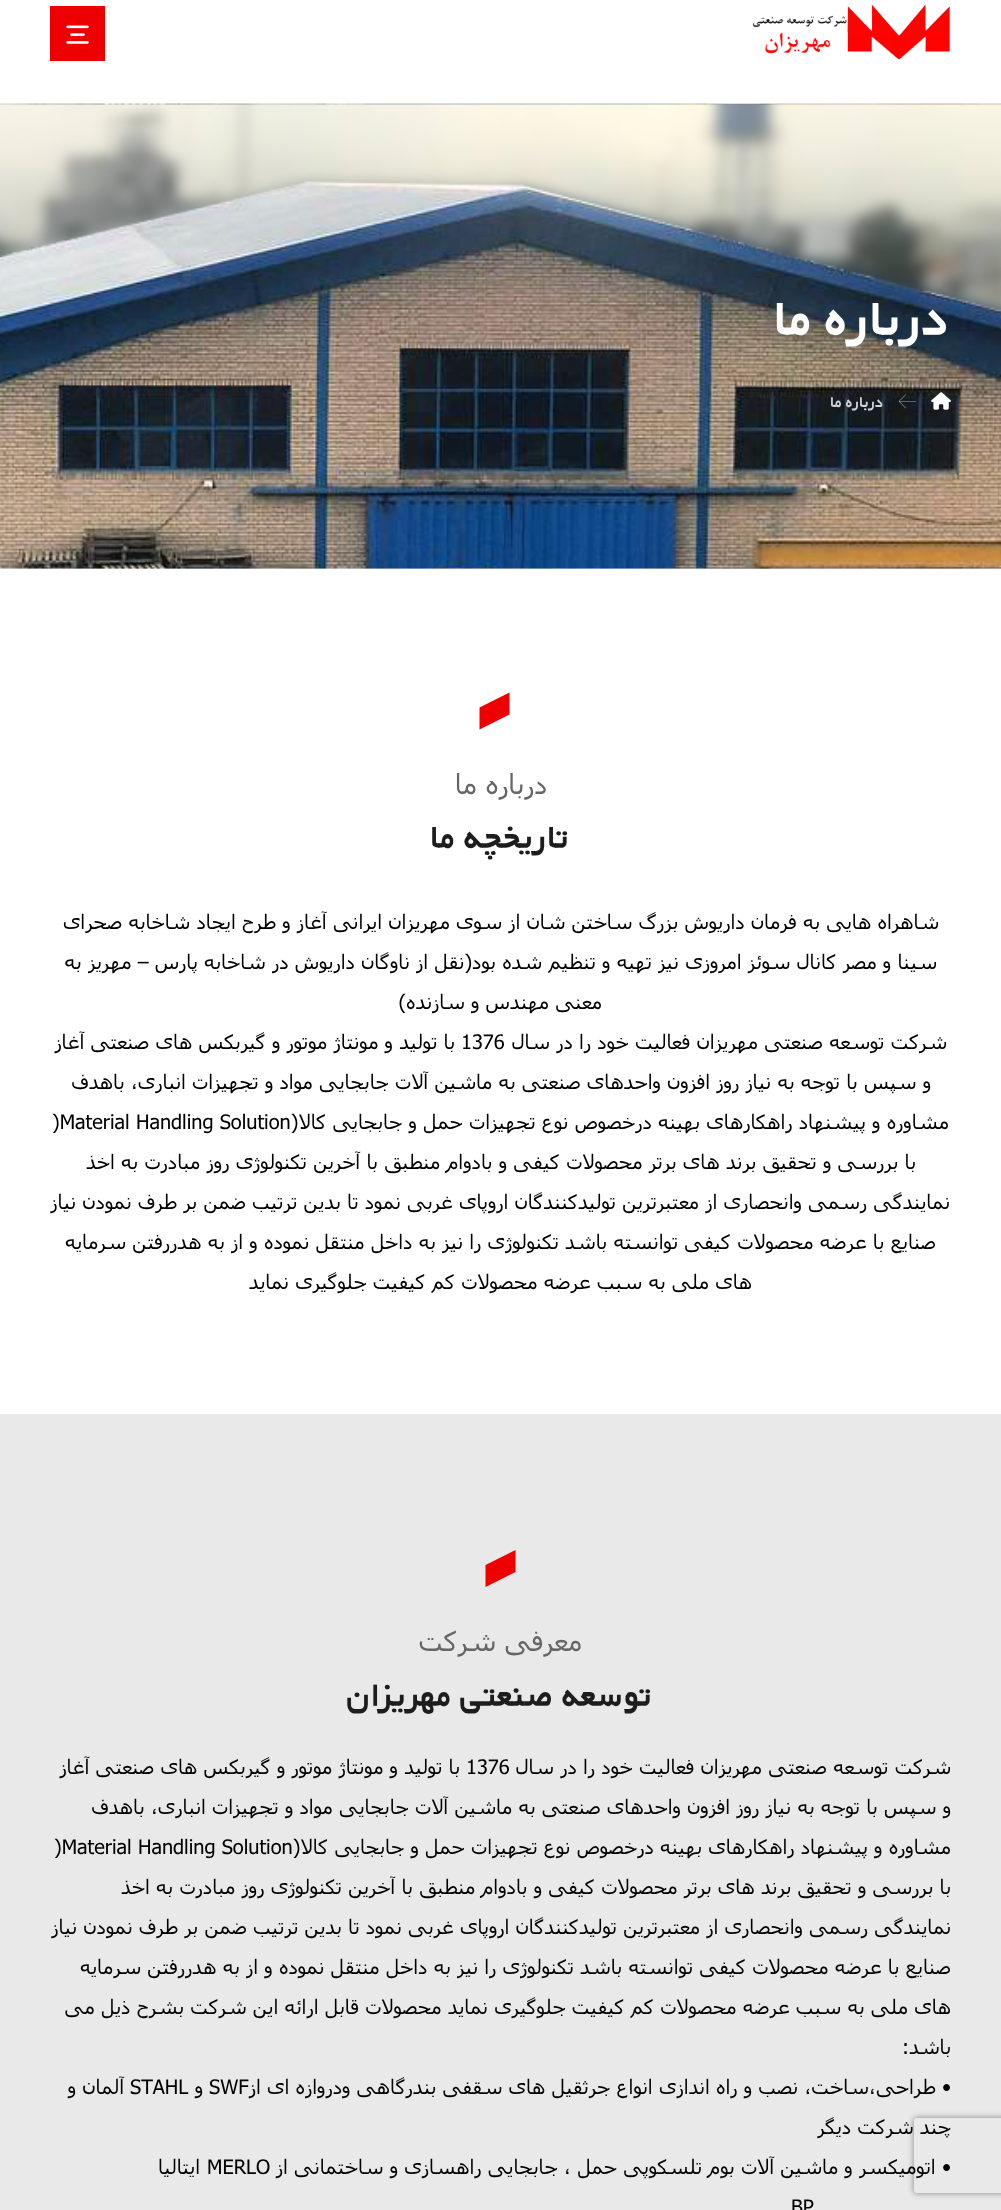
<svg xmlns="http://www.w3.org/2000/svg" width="1001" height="2210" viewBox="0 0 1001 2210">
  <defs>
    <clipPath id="clip1"><path d="M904 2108H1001V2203H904ZM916.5 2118H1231.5C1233 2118 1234 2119 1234 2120.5V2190.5C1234 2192 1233 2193 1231.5 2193H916.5C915 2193 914 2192 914 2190.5V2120.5C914 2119 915 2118 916.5 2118Z" clip-rule="evenodd"/></clipPath>
  </defs>
  <rect width="100%" height="100%" fill="rgb(255,255,255)"/>
  <rect x="0" y="1414" width="1001" height="796" fill="rgb(233,233,233)"/>
  <g clip-path="url(#clip1)">
    <rect x="914" y="2118" width="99" height="75" rx="2.5" fill="rgb(128,128,128)" filter="blur(3px)"/>
  </g>
  <image x="752" y="4" width="199" height="56" href="pic1.png"/>
  <rect x="50" y="6" width="55" height="55" fill="rgb(238,0,0)"/>
  <image x="66" y="25" width="23" height="19" href="pic2.png"/>
  <image x="0" y="103" width="1001" height="466" href="pic3.png"/>
  <text x="951" y="338" font-family="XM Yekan" font-size="57.5" font-weight="bold" direction="rtl" fill="rgb(255,255,255)">درباره ما</text>
  <image x="931" y="392" width="20" height="18" href="pic4.png"/>
  <image x="898" y="394" width="19" height="15" href="pic5.png"/>
  <text x="884" y="408" font-family="XM Yekan" font-size="17.5" font-weight="bold" direction="rtl" fill="rgb(208,210,211)">درباره ما</text>
  <path d="M509.5 692.5V714.5L479.5 729.5V707.5Z" fill="rgb(238,0,0)"/>
  <text x="547" y="794" font-family="Tahoma" font-size="27.5" direction="rtl" fill="rgb(102,102,102)">درباره ما</text>
  <text x="570" y="850" font-family="XM Yekan" font-size="37.5" font-weight="bold" direction="rtl" fill="rgb(29,29,29)">تاریخچه ما</text>
  <g font-family="Tahoma" font-size="20" direction="rtl" fill="rgb(0,0,0)">
    <text x="939" y="929">شاهراه هایی به فرمان داریوش بزرگ ساختن شان از سوی مهریزان ایرانی آغاز و طرح ایجاد شاخابه صحرای</text>
    <text x="937" y="969">سینا و مصر کانال سوئز امروزی نیز تهیه و تنظیم شده بود(نقل از ناوگان داریوش در شاخابه پارس – مهریز به</text>
    <text x="602" y="1009">معنی مهندس و سازنده)</text>
    <text x="947" y="1049">شرکت توسعه صنعتی مهریزان فعالیت خود را در سال</text>
  </g>
  <text x="461" y="1049" font-family="Tahoma" font-size="20" fill="rgb(0,0,0)">1376</text>
  <g font-family="Tahoma" font-size="20" direction="rtl" fill="rgb(0,0,0)">
    <text x="455" y="1049">با تولید و مونتاژ موتور و گیربکس های صنعتی آغاز</text>
    <text x="931" y="1089">و سپس با توجه به نیاز روز افزون واحدهای صنعتی به ماشین آلات جابجایی مواد و تجهیزات انباری، باهدف</text>
    <text x="949" y="1129">مشاوره و پیشنهاد راهکارهای بهینه درخصوص نوع تجهیزات حمل و جابجایی کالا(</text>
  </g>
  <text x="52" y="1129" font-family="Tahoma" font-size="20" fill="rgb(0,0,0)">)Material Handling Solution</text>
  <g font-family="Tahoma" font-size="20" direction="rtl" fill="rgb(0,0,0)">
    <text x="916" y="1169">با بررسی و تحقیق برند های برتر محصولات کیفی و بادوام منطبق با آخرین تکنولوژی روز مبادرت به اخذ</text>
    <text x="950" y="1209">نمایندگی رسمی وانحصاری از معتبرترین تولیدکنندگان اروپای غربی نمود تا بدین ترتیب ضمن بر طرف نمودن نیاز</text>
    <text x="936" y="1249">صنایع با عرضه محصولات کیفی توانسته باشد تکنولوژی را نیز به داخل منتقل نموده و از به هدررفتن سرمایه</text>
    <text x="752" y="1289">های ملی به سبب عرضه محصولات کم کیفیت جلوگیری نماید</text>
  </g>
  <path d="M515.5 1550V1572L485.5 1587V1565Z" fill="rgb(238,0,0)"/>
  <text x="582" y="1651" font-family="Tahoma" font-size="27.5" direction="rtl" fill="rgb(102,102,102)">معرفی شرکت</text>
  <text x="653" y="1708" font-family="XM Yekan" font-size="37.5" font-weight="bold" direction="rtl" fill="rgb(29,29,29)">توسعه صنعتی مهریزان</text>
  <text x="951" y="1774" font-family="Tahoma" font-size="20" direction="rtl" fill="rgb(0,0,0)">شرکت توسعه صنعتی مهریزان فعالیت خود را در سال</text>
  <text x="466" y="1774" font-family="Tahoma" font-size="20" fill="rgb(0,0,0)">1376</text>
  <g font-family="Tahoma" font-size="20" direction="rtl" fill="rgb(0,0,0)">
    <text x="460" y="1774">با تولید و مونتاژ موتور و گیربکس های صنعتی آغاز</text>
    <text x="951" y="1814">و سپس با توجه به نیاز روز افزون واحدهای صنعتی به ماشین آلات جابجایی مواد و تجهیزات انباری، باهدف</text>
    <text x="951" y="1854">مشاوره و پیشنهاد راهکارهای بهینه درخصوص نوع تجهیزات حمل و جابجایی کالا(</text>
  </g>
  <text x="54" y="1854" font-family="Tahoma" font-size="20" fill="rgb(0,0,0)">)Material Handling Solution</text>
  <g font-family="Tahoma" font-size="20" direction="rtl" fill="rgb(0,0,0)">
    <text x="951" y="1894">با بررسی و تحقیق برند های برتر محصولات کیفی و بادوام منطبق با آخرین تکنولوژی روز مبادرت به اخذ</text>
    <text x="951" y="1934">نمایندگی رسمی وانحصاری از معتبرترین تولیدکنندگان اروپای غربی نمود تا بدین ترتیب ضمن بر طرف نمودن نیاز</text>
    <text x="951" y="1974">صنایع با عرضه محصولات کیفی توانسته باشد تکنولوژی را نیز به داخل منتقل نموده و از به هدررفتن سرمایه</text>
    <text x="951" y="2014">های ملی به سبب عرضه محصولات کم کیفیت جلوگیری نماید محصولات قابل ارائه این شرکت بشرح ذیل می</text>
    <text x="951" y="2054">باشد:</text>
  </g>
  <text x="209" y="2094" font-family="Tahoma" font-size="20" fill="rgb(0,0,0)">SWF</text>
  <g font-family="Tahoma" font-size="20" direction="rtl" fill="rgb(0,0,0)">
    <text x="951" y="2094">• طراحی،ساخت، نصب و راه اندازی انواع جرثقیل های سقفی بندرگاهی ودروازه ای از</text>
    <text x="203" y="2094">و</text>
  </g>
  <text x="130" y="2094" font-family="Tahoma" font-size="20" fill="rgb(0,0,0)">STAHL</text>
  <g font-family="Tahoma" font-size="20" direction="rtl" fill="rgb(0,0,0)">
    <text x="124" y="2094">آلمان و</text>
    <text x="951" y="2134">چند شرکت دیگر</text>
    <text x="951" y="2174">• اتومیکسر و ماشین آلات بوم تلسکوپی حمل ، جابجایی راهسازی و ساختمانی از</text>
  </g>
  <text x="207" y="2174" font-family="Tahoma" font-size="20" fill="rgb(0,0,0)">MERLO</text>
  <text x="200" y="2174" font-family="Tahoma" font-size="20" direction="rtl" fill="rgb(0,0,0)">ایتالیا</text>
  <text x="791" y="2214" font-family="Tahoma" font-size="20" fill="rgb(0,0,0)">BP</text>
</svg>
